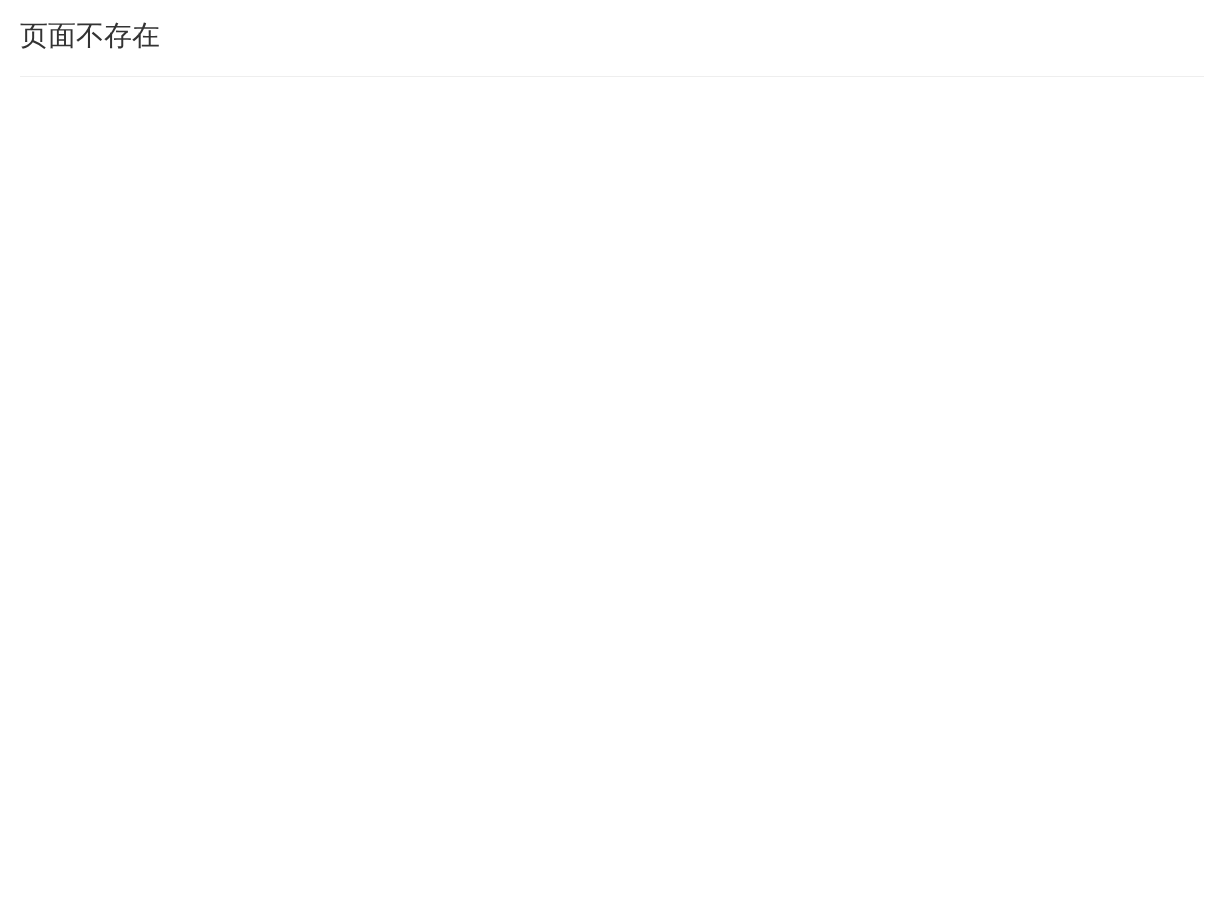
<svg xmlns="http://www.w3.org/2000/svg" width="1224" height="906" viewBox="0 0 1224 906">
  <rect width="100%" height="100%" fill="rgb(255,255,255)"/>
  <text x="20" y="45" font-family="WenQuanYi Zen Hei" font-size="28" font-weight="500" fill="rgb(51,51,51)">页面不存在</text>
  <rect x="20" y="76" width="1184" height="1" fill="rgb(238,238,238)"/>
</svg>
